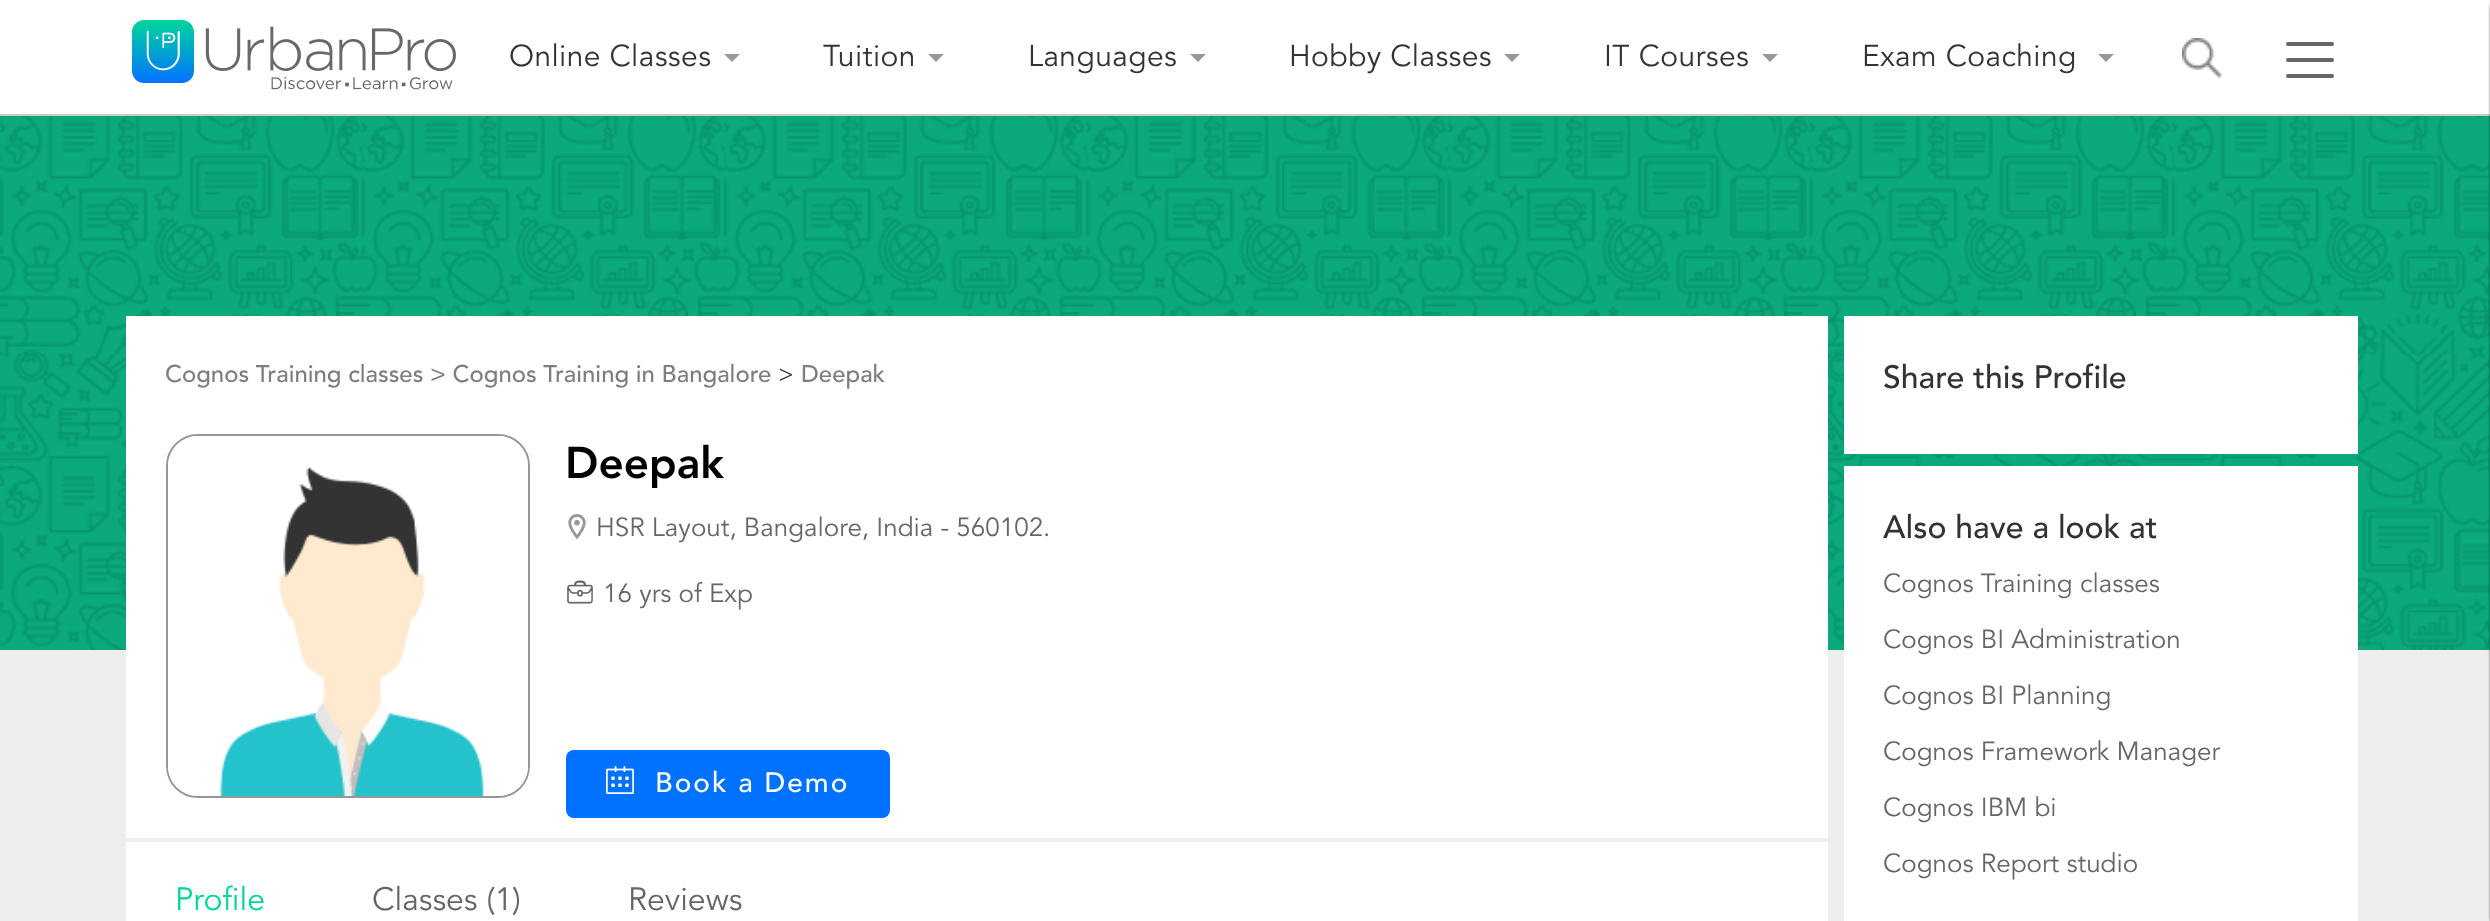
<svg xmlns="http://www.w3.org/2000/svg" width="2490" height="921" viewBox="0 0 2490 921">
  <rect width="100%" height="100%" fill="rgb(238,238,238)"/>
  <rect x="0" y="0" width="2490" height="114" fill="rgb(255,255,255)"/>
  <rect x="0" y="114" width="2490" height="2" fill="rgb(204,204,204)"/>
  <image x="0" y="116" width="2490" height="534" href="pic3.png"/>
  <rect x="2490" y="2" width="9" height="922" rx="6" fill="rgba(0,0,0,0.2)" filter="blur(1px)"/>
  <rect x="2490" y="2" width="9" height="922" rx="6" fill="rgba(0,0,0,0.2)" filter="blur(1px)"/>
  <image x="132" y="20" width="324" height="70" href="pic1.png"/>
  <text x="509" y="66" font-family="Avenir" font-size="30" letter-spacing="0.4" fill="rgb(51,51,51)">Online Classes</text>
  <path d="M724 54H740L732 62Z" fill="rgb(153,153,153)"/>
  <text x="823" y="66" font-family="Avenir" font-size="30" letter-spacing="0.4" fill="rgb(51,51,51)">Tuition</text>
  <path d="M928 54H944L936 62Z" fill="rgb(153,153,153)"/>
  <text x="1028" y="66" font-family="Avenir" font-size="30" letter-spacing="0.4" fill="rgb(51,51,51)">Languages</text>
  <path d="M1190 54H1206L1198 62Z" fill="rgb(153,153,153)"/>
  <text x="1289" y="66" font-family="Avenir" font-size="30" letter-spacing="0.4" fill="rgb(51,51,51)">Hobby Classes</text>
  <path d="M1504 54H1520L1512 62Z" fill="rgb(153,153,153)"/>
  <text x="1604" y="66" font-family="Avenir" font-size="30" letter-spacing="0.4" fill="rgb(51,51,51)">IT Courses</text>
  <path d="M1762 54H1778L1770 62Z" fill="rgb(153,153,153)"/>
  <text x="1862" y="66" font-family="Avenir" font-size="30" letter-spacing="0.4" fill="rgb(51,51,51)">Exam Coaching</text>
  <path d="M2098 54H2114L2106 62Z" fill="rgb(153,153,153)"/>
  <image x="2182" y="38" width="40" height="40" href="pic2.png"/>
  <rect x="2286" y="58" width="48" height="4" rx="2" fill="rgb(102,102,102)"/>
  <rect x="2286" y="42" width="48" height="4" rx="2" fill="rgb(102,102,102)"/>
  <rect x="2286" y="74" width="48" height="4" rx="2" fill="rgb(102,102,102)"/>
  <rect x="2490" y="2" width="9" height="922" rx="6" fill="rgba(0,0,0,0.2)" filter="blur(1px)"/>
  <rect x="126" y="316" width="1702" height="522" fill="rgb(255,255,255)"/>
  <text x="165" y="382" font-family="Avenir" font-size="24" font-weight="500" fill="rgb(126,126,126)">Cognos Training classes &gt; Cognos Training in Bangalore</text>
  <text x="778" y="382" font-family="Avenir" font-size="24" fill="rgb(51,51,51)">&gt;</text>
  <text x="801" y="382" font-family="Avenir" font-size="24" font-weight="500" fill="rgb(126,126,126)">Deepak</text>
  <rect x="167" y="435" width="362" height="362" rx="31" fill="none" stroke="rgb(151,151,151)" stroke-width="2"/>
  <image x="168" y="436" width="360" height="360" href="pic4.png"/>
  <text x="565" y="478" font-family="Avenir" font-size="44" font-weight="900" fill="rgb(0,0,0)">Deepak</text>
  <image x="568" y="514" width="18" height="26" href="pic5.png"/>
  <text x="596" y="536" font-family="Avenir" font-size="26" fill="rgb(102,102,102)">HSR Layout, Bangalore, India - 560102.</text>
  <image x="567" y="580" width="26" height="24" href="pic6.png"/>
  <text x="603" y="602" font-family="Avenir" font-size="26" fill="rgb(102,102,102)">16 yrs of Exp</text>
  <rect x="566" y="750" width="324" height="68" rx="8" fill="rgb(0,114,255)"/>
  <image x="606" y="766" width="28" height="28" href="pic7.png"/>
  <text x="655" y="792" font-family="Avenir" font-size="28" font-weight="500" letter-spacing="2" fill="rgb(255,255,255)">Book a Demo</text>
  <rect x="126" y="842" width="1702" height="79" fill="rgb(255,255,255)"/>
  <text x="175" y="910" font-family="Avenir" font-size="32" fill="rgb(0,213,156)">Profile</text>
  <g font-family="Avenir" font-size="32" fill="rgb(102,102,102)">
    <text x="372" y="910">Classes (1)</text>
    <text x="628" y="910">Reviews</text>
  </g>
  <rect x="1844" y="316" width="514" height="138" fill="rgb(255,255,255)"/>
  <text x="1883" y="388" font-family="Avenir" font-size="32" font-weight="500" fill="rgb(51,51,51)">Share this Profile</text>
  <rect x="1844" y="466" width="514" height="455" fill="rgb(255,255,255)"/>
  <text x="1883" y="538" font-family="Avenir" font-size="32" font-weight="500" fill="rgb(51,51,51)">Also have a look at</text>
  <g font-family="Avenir" font-size="26" fill="rgb(102,102,102)">
    <text x="1883" y="592">Cognos Training classes</text>
    <text x="1883" y="648">Cognos BI Administration</text>
    <text x="1883" y="704">Cognos BI Planning</text>
    <text x="1883" y="760">Cognos Framework Manager</text>
    <text x="1883" y="816">Cognos IBM bi</text>
    <text x="1883" y="872">Cognos Report studio</text>
  </g>
</svg>
